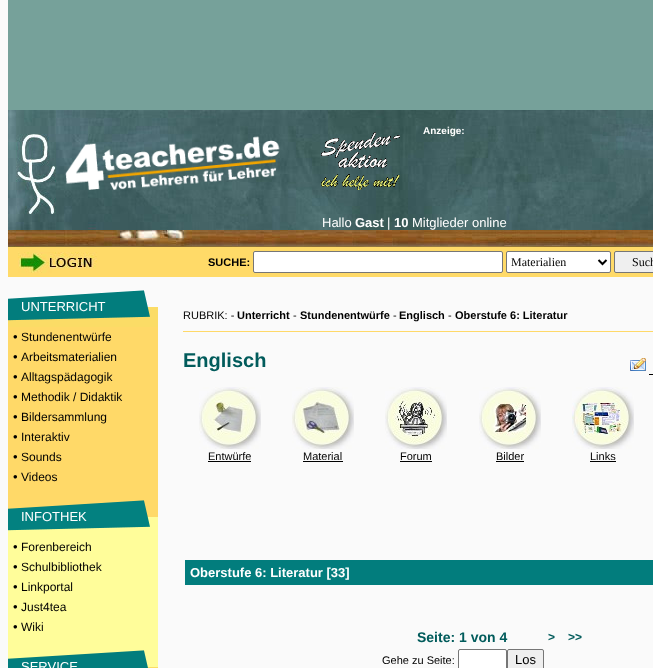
<svg xmlns="http://www.w3.org/2000/svg" width="653" height="668" viewBox="0 0 653 668">
  <rect width="100%" height="100%" fill="rgb(250,250,250)"/>
  <rect x="8" y="0" width="645" height="110" fill="rgb(118,161,154)"/>
  <image x="8" y="110" width="645" height="137" href="pic1.png"/>
  <image x="17" y="134" width="38" height="80" href="pic2.png"/>
  <image x="65" y="136" width="215" height="54" href="pic3.png"/>
  <image x="321" y="132" width="79" height="58" href="pic4.png"/>
  <text x="423" y="134" font-family="Liberation Sans" font-size="10" font-weight="bold" fill="rgb(255,255,255)">Anzeige:</text>
  <image x="603" y="124" width="50" height="12" href="pic5.png"/>
  <text x="322" y="227" font-family="Liberation Sans" font-size="13" fill="rgb(255,255,255)">Hallo</text>
  <text x="355" y="227" font-family="Liberation Sans" font-size="13" font-weight="bold" fill="rgb(255,255,255)">Gast</text>
  <text x="387" y="227" font-family="Liberation Sans" font-size="13" fill="rgb(255,255,255)">|</text>
  <text x="394" y="227" font-family="Liberation Sans" font-size="13" font-weight="bold" fill="rgb(255,255,255)">10</text>
  <text x="412" y="227" font-family="Liberation Sans" font-size="13" fill="rgb(255,255,255)">Mitglieder online</text>
  <rect x="8" y="247" width="645" height="30" fill="rgb(255,218,104)"/>
  <image x="18" y="252" width="79" height="21" href="pic6.png"/>
  <text x="208" y="266" font-family="Liberation Sans" font-size="11" font-weight="bold" fill="rgb(0,0,0)">SUCHE:</text>
  <rect x="253.5" y="251.5" width="249" height="21" rx="1.5" fill="rgb(255,255,255)" stroke="rgb(118,118,118)"/>
  <rect x="506.5" y="251.5" width="104" height="21" rx="1.5" fill="rgb(255,255,255)" stroke="rgb(118,118,118)"/>
  <path d="M598.5 260L602.5 264L606.5 260" fill="none" stroke="rgb(0,0,0)" stroke-width="2"/>
  <text x="511" y="266" font-family="Liberation Serif" font-size="12" fill="rgb(0,0,0)">Materialien</text>
  <rect x="614.5" y="251.5" width="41" height="21" rx="1.5" fill="rgb(239,239,239)" stroke="rgb(118,118,118)"/>
  <text x="632" y="266" font-family="Liberation Serif" font-size="12" fill="rgb(0,0,0)">Such</text>
  <rect x="8" y="327" width="150" height="170" fill="rgb(255,217,104)"/>
  <image x="8" y="290" width="150" height="37" href="pic7.png"/>
  <text x="21" y="311" font-family="Liberation Sans" font-size="13" fill="rgb(255,255,255)">UNTERRICHT</text>
  <text x="13" y="341" font-family="Liberation Sans" font-size="13" fill="rgb(0,0,0)">•</text>
  <text x="21" y="341" font-family="Liberation Sans" font-size="12" fill="rgb(0,0,0)">Stundenentwürfe</text>
  <text x="13" y="361" font-family="Liberation Sans" font-size="13" fill="rgb(0,0,0)">•</text>
  <text x="21" y="361" font-family="Liberation Sans" font-size="12" fill="rgb(0,0,0)">Arbeitsmaterialien</text>
  <text x="13" y="381" font-family="Liberation Sans" font-size="13" fill="rgb(0,0,0)">•</text>
  <text x="21" y="381" font-family="Liberation Sans" font-size="12" fill="rgb(0,0,0)">Alltagspädagogik</text>
  <text x="13" y="401" font-family="Liberation Sans" font-size="13" fill="rgb(0,0,0)">•</text>
  <text x="21" y="401" font-family="Liberation Sans" font-size="12" fill="rgb(0,0,0)">Methodik / Didaktik</text>
  <text x="13" y="421" font-family="Liberation Sans" font-size="13" fill="rgb(0,0,0)">•</text>
  <text x="21" y="421" font-family="Liberation Sans" font-size="12" fill="rgb(0,0,0)">Bildersammlung</text>
  <text x="13" y="441" font-family="Liberation Sans" font-size="13" fill="rgb(0,0,0)">•</text>
  <text x="21" y="441" font-family="Liberation Sans" font-size="12" fill="rgb(0,0,0)">Interaktiv</text>
  <text x="13" y="461" font-family="Liberation Sans" font-size="13" fill="rgb(0,0,0)">•</text>
  <text x="21" y="461" font-family="Liberation Sans" font-size="12" fill="rgb(0,0,0)">Sounds</text>
  <text x="13" y="481" font-family="Liberation Sans" font-size="13" fill="rgb(0,0,0)">•</text>
  <text x="21" y="481" font-family="Liberation Sans" font-size="12" fill="rgb(0,0,0)">Videos</text>
  <image x="8" y="497" width="150" height="40" href="pic8.png"/>
  <text x="21" y="521" font-family="Liberation Sans" font-size="13" fill="rgb(255,255,255)">INFOTHEK</text>
  <rect x="8" y="537" width="150" height="110" fill="rgb(255,253,154)"/>
  <text x="13" y="551" font-family="Liberation Sans" font-size="13" fill="rgb(0,0,0)">•</text>
  <text x="21" y="551" font-family="Liberation Sans" font-size="12" fill="rgb(0,0,0)">Forenbereich</text>
  <text x="13" y="571" font-family="Liberation Sans" font-size="13" fill="rgb(0,0,0)">•</text>
  <text x="21" y="571" font-family="Liberation Sans" font-size="12" fill="rgb(0,0,0)">Schulbibliothek</text>
  <text x="13" y="591" font-family="Liberation Sans" font-size="13" fill="rgb(0,0,0)">•</text>
  <text x="21" y="591" font-family="Liberation Sans" font-size="12" fill="rgb(0,0,0)">Linkportal</text>
  <text x="13" y="611" font-family="Liberation Sans" font-size="13" fill="rgb(0,0,0)">•</text>
  <text x="21" y="611" font-family="Liberation Sans" font-size="12" fill="rgb(0,0,0)">Just4tea</text>
  <text x="13" y="631" font-family="Liberation Sans" font-size="13" fill="rgb(0,0,0)">•</text>
  <text x="21" y="631" font-family="Liberation Sans" font-size="12" fill="rgb(0,0,0)">Wiki</text>
  <image x="8" y="647" width="150" height="21" href="pic9.png"/>
  <text x="21" y="671" font-family="Liberation Sans" font-size="13" fill="rgb(255,255,255)">SERVICE</text>
  <text x="183" y="319" font-family="Liberation Sans" font-size="11" fill="rgb(0,0,0)">RUBRIK: -</text>
  <text x="237" y="319" font-family="Liberation Sans" font-size="11" font-weight="bold" fill="rgb(0,0,0)">Unterricht</text>
  <text x="293" y="319" font-family="Liberation Sans" font-size="11" fill="rgb(0,0,0)">-</text>
  <text x="300" y="319" font-family="Liberation Sans" font-size="11" font-weight="bold" fill="rgb(0,0,0)">Stundenentwürfe</text>
  <text x="393" y="319" font-family="Liberation Sans" font-size="11" fill="rgb(0,0,0)">-</text>
  <text x="399" y="319" font-family="Liberation Sans" font-size="11" font-weight="bold" fill="rgb(0,0,0)">Englisch</text>
  <text x="448" y="319" font-family="Liberation Sans" font-size="11" fill="rgb(0,0,0)">-</text>
  <text x="455" y="319" font-family="Liberation Sans" font-size="11" font-weight="bold" fill="rgb(0,0,0)">Oberstufe 6: Literatur</text>
  <rect x="183" y="331" width="470" height="1" fill="rgb(255,217,104)"/>
  <text x="183" y="367" font-family="Liberation Sans" font-size="20" font-weight="bold" fill="rgb(1,91,91)">Englisch</text>
  <image x="630" y="358" width="16" height="13" href="pic10.png"/>
  <rect x="649" y="374" width="4" height="1" fill="rgb(0,0,0)"/>
  <image x="199" y="387" width="62" height="62" href="pic11.png"/>
  <image x="292" y="387" width="62" height="62" href="pic12.png"/>
  <image x="385" y="387" width="62" height="62" href="pic13.png"/>
  <image x="479" y="387" width="62" height="62" href="pic14.png"/>
  <image x="572" y="387" width="62" height="62" href="pic15.png"/>
  <text x="208" y="460" font-family="Liberation Sans" font-size="11" fill="rgb(0,0,0)">Entwürfe</text>
  <rect x="208" y="461" width="43" height="1" fill="rgb(0,0,0)"/>
  <text x="303" y="460" font-family="Liberation Sans" font-size="11" fill="rgb(0,0,0)">Material</text>
  <rect x="303" y="461" width="40" height="1" fill="rgb(0,0,0)"/>
  <text x="400" y="460" font-family="Liberation Sans" font-size="11" fill="rgb(0,0,0)">Forum</text>
  <rect x="400" y="461" width="32" height="1" fill="rgb(0,0,0)"/>
  <text x="496" y="460" font-family="Liberation Sans" font-size="11" fill="rgb(0,0,0)">Bilder</text>
  <rect x="496" y="461" width="28" height="1" fill="rgb(0,0,0)"/>
  <text x="590" y="460" font-family="Liberation Sans" font-size="11" fill="rgb(0,0,0)">Links</text>
  <rect x="590" y="461" width="26" height="1" fill="rgb(0,0,0)"/>
  <rect x="185" y="560" width="468" height="25" fill="rgb(2,125,125)"/>
  <text x="190" y="577" font-family="Liberation Sans" font-size="13" font-weight="bold" fill="rgb(255,255,255)">Oberstufe 6: Literatur [33]</text>
  <text x="417" y="642" font-family="Liberation Sans" font-size="14" font-weight="bold" fill="rgb(1,91,91)">Seite: 1 von 4</text>
  <g font-family="Liberation Sans" font-size="12" font-weight="bold" fill="rgb(1,91,91)">
    <text x="548" y="641">&gt;</text>
    <text x="568" y="641">&gt;&gt;</text>
  </g>
  <text x="382" y="664" font-family="Liberation Sans" font-size="11" fill="rgb(0,0,0)">Gehe zu Seite:</text>
  <rect x="458.5" y="649.5" width="48" height="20" rx="1.5" fill="rgb(255,255,255)" stroke="rgb(118,118,118)"/>
  <rect x="507.5" y="649.5" width="36" height="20" rx="1.5" fill="rgb(239,239,239)" stroke="rgb(118,118,118)"/>
  <text x="515" y="664" font-family="Liberation Sans" font-size="13" fill="rgb(0,0,0)">Los</text>
</svg>
